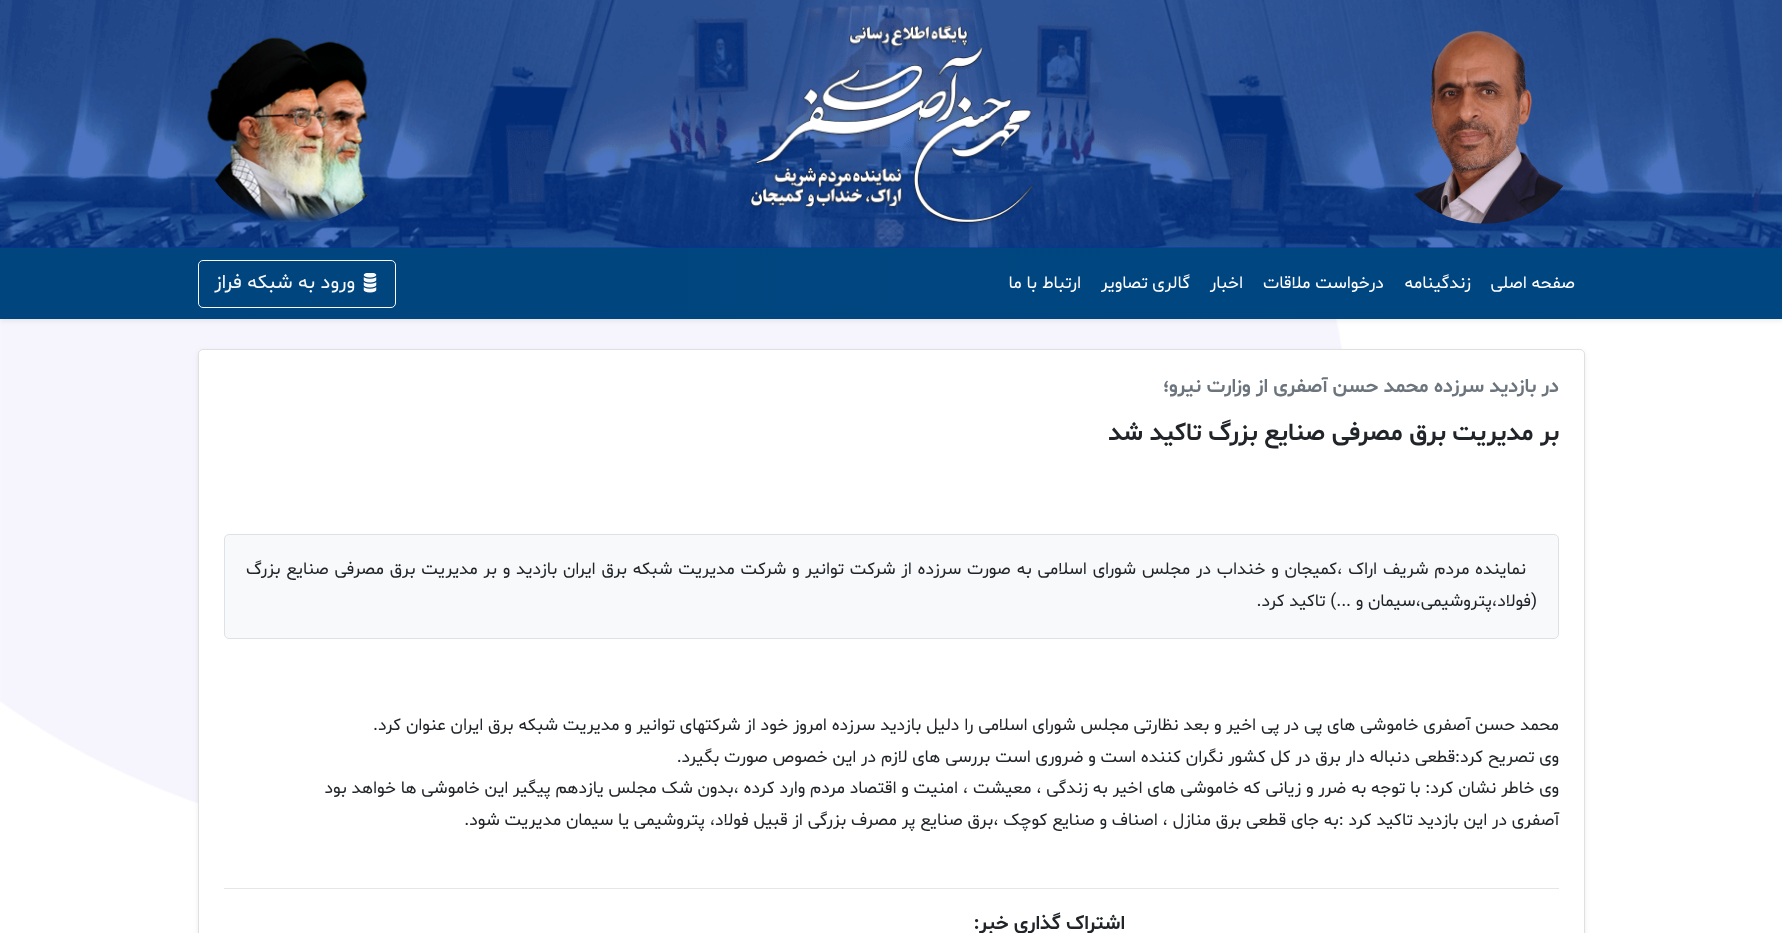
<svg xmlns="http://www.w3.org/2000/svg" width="1782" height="933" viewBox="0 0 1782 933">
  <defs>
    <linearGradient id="g1" gradientUnits="userSpaceOnUse" x1="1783" y1="283" x2="0" y2="283"><stop offset="0" stop-color="rgb(0,70,128)"/><stop offset="1" stop-color="rgb(0,69,126)"/></linearGradient>
  </defs>
  <rect width="100%" height="100%" fill="rgb(255,255,255)"/>
  <image x="0" y="319" width="1343" height="485" href="pic1.png"/>
  <rect x="0" y="0" width="1782" height="248" fill="rgb(0,57,168)"/>
  <image x="0" y="0" width="1782" height="248" href="pic2.png"/>
  <image x="1414" y="30" width="150" height="194" href="pic3.png"/>
  <image x="749" y="24" width="285" height="201" href="pic4.png"/>
  <image x="207" y="37" width="184" height="186" href="pic5.png"/>
  <rect x="0" y="250" width="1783" height="71" fill="rgba(0,0,0,0.07)" filter="blur(2.5px)"/>
  <rect x="0" y="248" width="1782" height="71" fill="url(#g1)"/>
  <g font-family="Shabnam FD" font-size="17.5" direction="rtl" fill="rgb(255,255,255)">
    <text x="1575" y="288">صفحه اصلی</text>
    <text x="1471" y="288">زندگینامه</text>
    <text x="1384" y="288">درخواست ملاقات</text>
    <text x="1243" y="288">اخبار</text>
    <text x="1190" y="288">گالری تصاویر</text>
    <text x="1081" y="288">ارتباط با ما</text>
  </g>
  <rect x="198.5" y="260.5" width="197" height="47" rx="4.5" fill="none" stroke="rgb(248,249,250)"/>
  <image x="363" y="273" width="14" height="20" href="pic6.png"/>
  <text x="355" y="288" font-family="Shabnam FD" font-size="20" direction="rtl" fill="rgb(248,249,250)">ورود به شبکه فراز</text>
  <rect x="198" y="351" width="1387" height="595" rx="5" fill="rgba(0,0,0,0.07)" filter="blur(2.5px)"/>
  <rect x="198" y="349" width="1387" height="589" rx="5" fill="rgb(255,255,255)"/>
  <rect x="198.5" y="349.5" width="1386" height="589" rx="4.5" fill="none" stroke="rgba(0,0,0,0.12)"/>
  <text x="1559" y="392" font-family="Shabnam FD" font-size="20" font-weight="bold" direction="rtl" fill="rgb(108,117,125)">در بازدید سرزده محمد حسن آصفری از وزارت نیرو؛</text>
  <text x="1559" y="440" font-family="Shabnam FD" font-size="25" font-weight="bold" direction="rtl" fill="rgb(33,37,41)">بر مدیریت برق مصرفی صنایع بزرگ تاکید شد</text>
  <rect x="224.5" y="534.5" width="1334" height="104" rx="4.5" fill="rgb(248,249,250)" stroke="rgb(222,226,230)"/>
  <g font-family="Shabnam FD" font-size="17.5" direction="rtl" fill="rgb(33,37,41)">
    <text x="1526" y="574" word-spacing="1">نماینده مردم شریف اراک ،کمیجان و خنداب در مجلس شورای اسلامی به صورت سرزده از شرکت توانیر و شرکت مدیریت شبکه برق ایران بازدید و بر مدیریت برق مصرفی صنایع بزرگ</text>
    <text x="1537" y="606">(فولاد،پتروشیمی،سیمان و ...) تاکید کرد.</text>
    <text>
      <tspan x="1559" y="730">محمد حسن آصفری خاموشی های پی در پی اخیر و بعد نظارتی مجلس شورای اسلامی را دلیل بازدید سرزده امروز خود از شرکتهای توانیر و مدیریت شبکه برق ایران عنوان کرد.</tspan>
      <tspan x="1559" y="762">وی تصریح کرد:قطعی دنباله دار برق در کل کشور نگران کننده است و ضروری است بررسی های لازم در این خصوص صورت بگیرد.</tspan>
      <tspan x="1559" y="793">وی خاطر نشان کرد: با توجه به ضرر و زیانی که خاموشی های اخیر به زندگی ، معیشت ، امنیت و اقتصاد مردم وارد کرده ،بدون شک مجلس یازدهم پیگیر این خاموشی ها خواهد بود</tspan>
      <tspan x="1559" y="825">آصفری در این بازدید تاکید کرد :به جای قطعی برق منازل ، اصناف و صنایع کوچک ،برق صنایع پر مصرف بزرگی از قبیل فولاد، پتروشیمی یا سیمان مدیریت شود.</tspan>
    </text>
  </g>
  <rect x="224" y="888" width="1335" height="1" fill="rgb(230,230,230)"/>
  <text x="1125" y="929" font-family="Shabnam FD" font-size="20" font-weight="bold" direction="rtl" fill="rgb(33,37,41)">اشتراک گذاری خبر:</text>
</svg>
